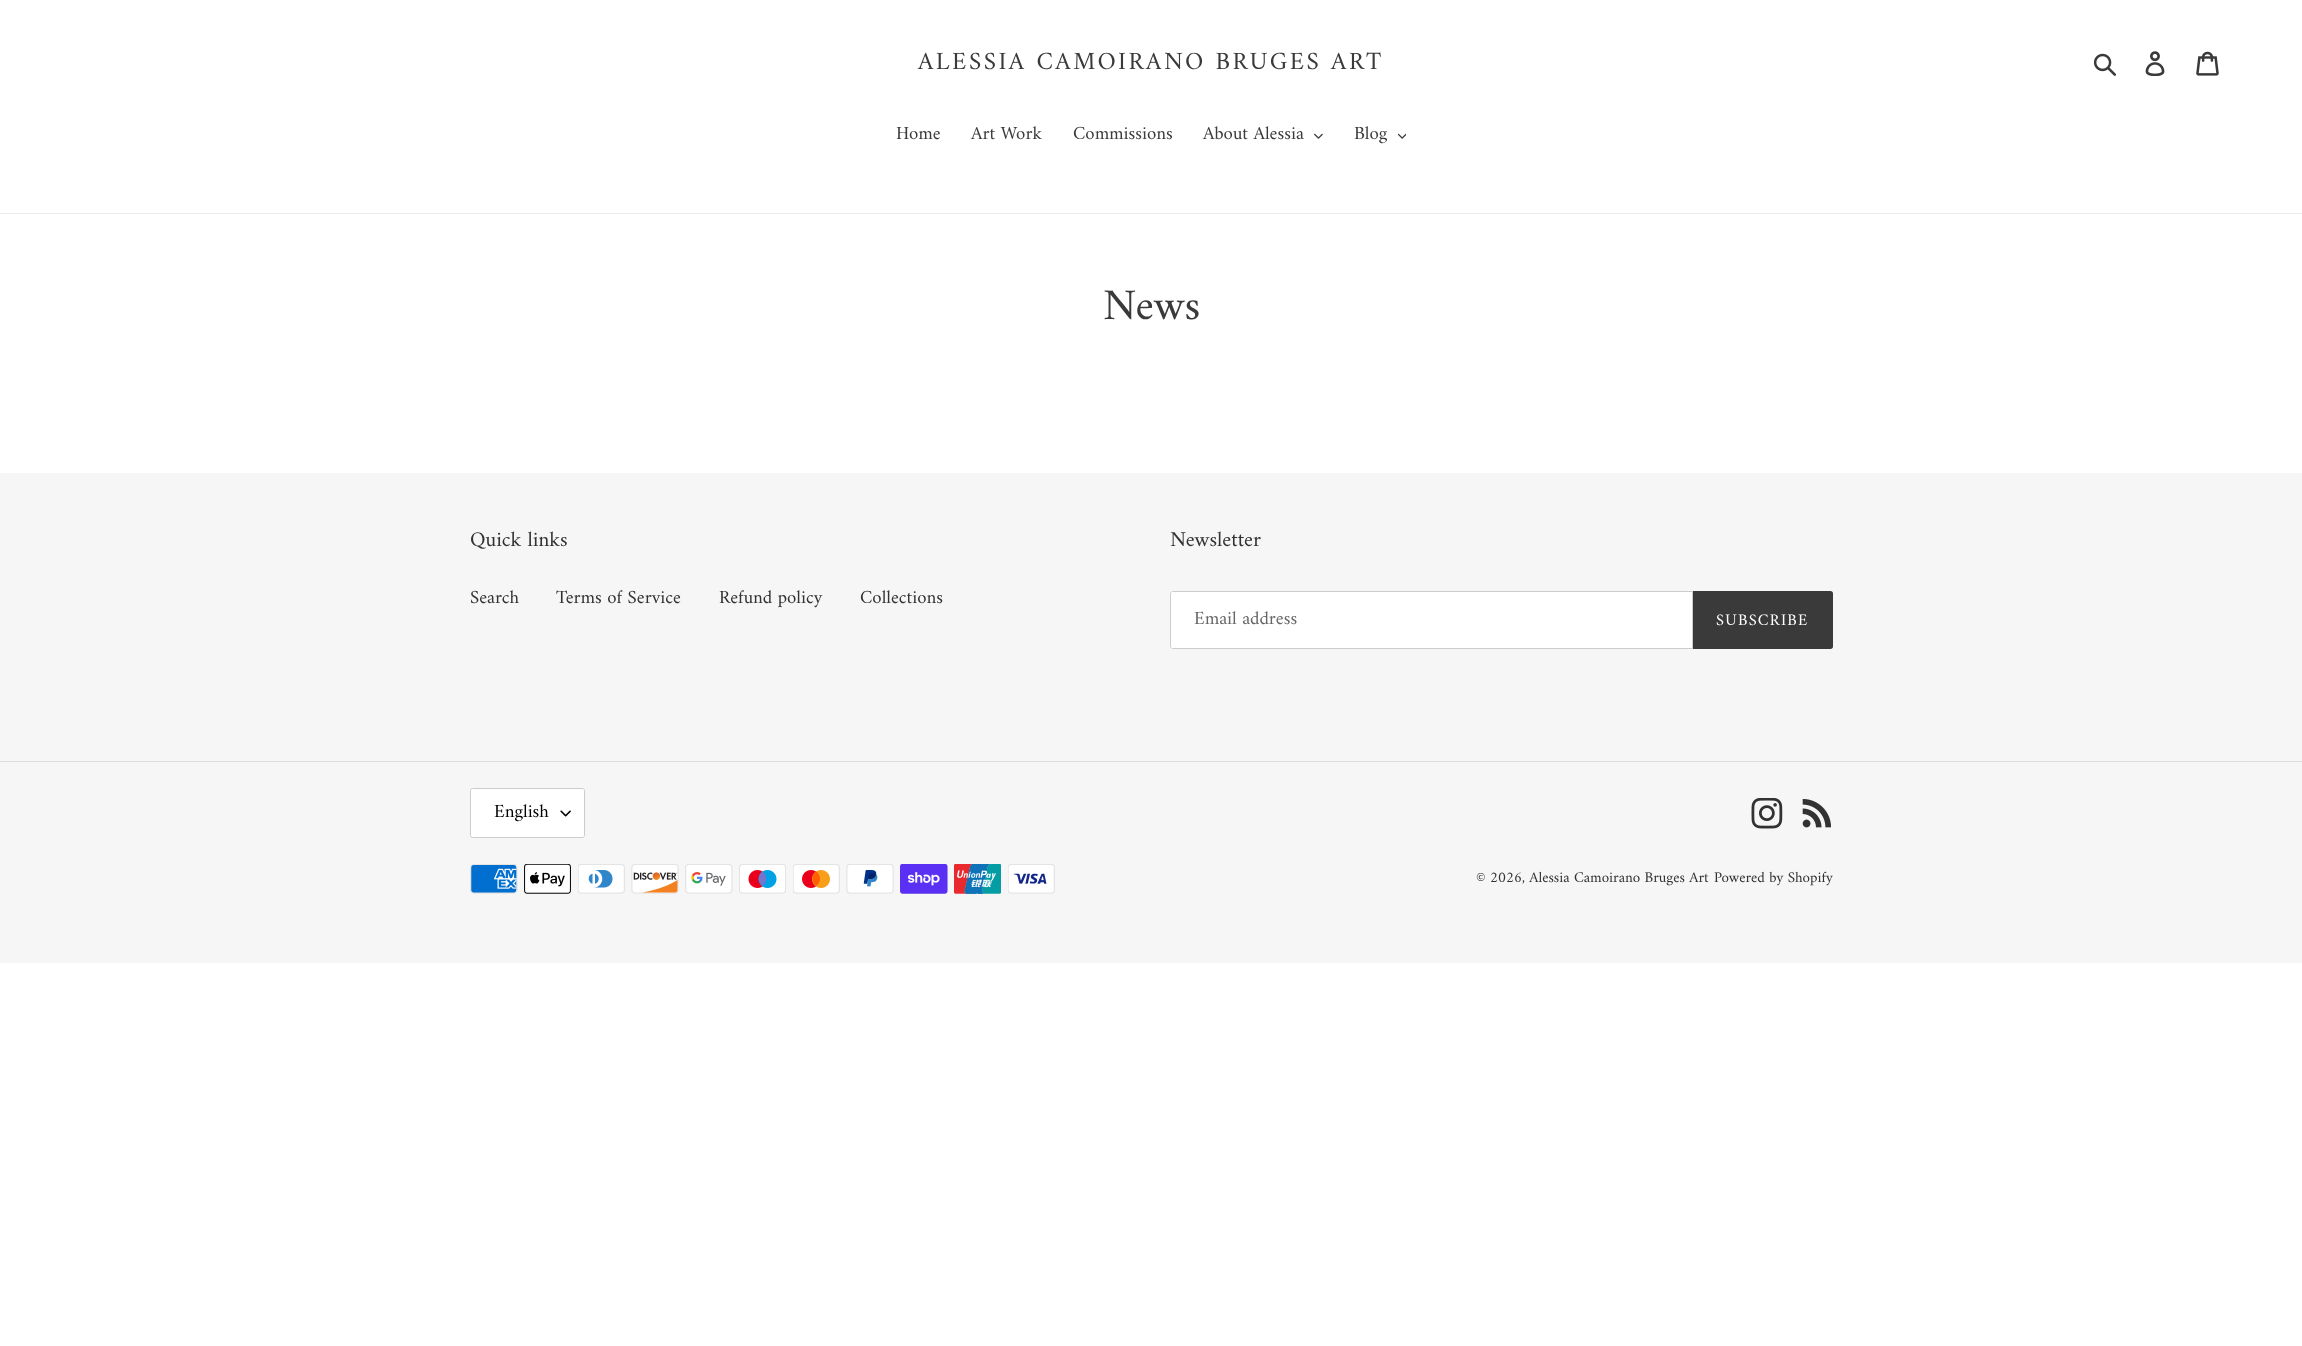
<svg xmlns="http://www.w3.org/2000/svg" width="2302" height="1346" viewBox="0 0 2302 1346">
  <rect width="100%" height="100%" fill="rgb(255,255,255)"/>
  <text x="918" y="69" font-family="Amiri" font-size="25" letter-spacing="2.5" fill="rgb(58,58,58)">ALESSIA CAMOIRANO BRUGES ART</text>
  <image x="2093" y="53" width="23" height="23" href="pic1.png"/>
  <image x="2145" y="51" width="20" height="25" href="pic2.png"/>
  <image x="2196" y="51" width="23" height="25" href="pic3.png"/>
  <rect x="0" y="213" width="2302" height="1" fill="rgb(235,235,235)"/>
  <g font-family="Amiri" font-size="18.75" fill="rgb(58,58,58)">
    <text x="896" y="139">Home</text>
    <text x="971" y="139">Art Work</text>
    <text x="1073" y="139">Commissions</text>
    <text x="1203" y="139">About Alessia</text>
  </g>
  <image x="1314" y="133" width="9" height="6" href="pic4.png"/>
  <text x="1354" y="139" font-family="Amiri" font-size="18.75" fill="rgb(58,58,58)">Blog</text>
  <image x="1398" y="133" width="8" height="6" href="pic5.png"/>
  <text x="1103" y="319" font-family="Amiri" font-size="44" fill="rgb(58,58,58)">News</text>
  <rect x="0" y="473" width="2302" height="490" fill="rgb(246,246,246)"/>
  <text x="470" y="546" font-family="Amiri" font-size="21.25" fill="rgb(51,50,50)">Quick links</text>
  <g font-family="Amiri" font-size="18.75" fill="rgb(51,50,50)">
    <text x="470" y="603">Search</text>
    <text x="556" y="603">Terms of Service</text>
    <text x="719" y="603">Refund policy</text>
    <text x="860" y="603">Collections</text>
  </g>
  <text x="1170" y="546" font-family="Amiri" font-size="21.25" fill="rgb(51,50,50)">Newsletter</text>
  <path d="M1172.5 591.5H1692.5V648.5H1172.5C1171.5 648.5 1170.5 647.5 1170.5 646.5V593.5C1170.5 592.5 1171.5 591.5 1172.5 591.5Z" fill="rgb(255,255,255)" stroke="rgb(204,204,204)"/>
  <text x="1194" y="624" font-family="Amiri" font-size="18.75" fill="rgb(102,102,102)">Email address</text>
  <path d="M1693 591H1830.5C1832 591 1833 592 1833 593.5V646.5C1833 648 1832 649 1830.5 649H1693Z" fill="rgb(58,58,58)"/>
  <text x="1716" y="625" font-family="Amiri" font-size="16.25" letter-spacing="1.25" fill="rgb(255,255,255)">SUBSCRIBE</text>
  <rect x="0" y="761" width="2302" height="1" fill="rgb(221,221,221)"/>
  <rect x="470" y="788" width="115" height="50" rx="2.5" fill="rgb(255,255,255)"/>
  <image x="560" y="810" width="11" height="7" href="pic6.png"/>
  <rect x="470.5" y="788.5" width="114" height="49" rx="2" fill="none" stroke="rgb(204,204,204)"/>
  <text x="494" y="817" font-family="Amiri" font-size="18.75" fill="rgb(0,0,0)">English</text>
  <image x="1751" y="798" width="32" height="31" href="pic7.png"/>
  <image x="1802" y="799" width="29" height="29" href="pic8.png"/>
  <image x="470" y="864" width="48" height="30" href="pic9.png"/>
  <image x="524" y="864" width="47" height="30" href="pic10.png"/>
  <image x="578" y="864" width="47" height="30" href="pic11.png"/>
  <image x="631" y="864" width="48" height="30" href="pic12.png"/>
  <image x="685" y="864" width="48" height="30" href="pic13.png"/>
  <image x="739" y="864" width="47" height="30" href="pic14.png"/>
  <image x="793" y="864" width="47" height="30" href="pic15.png"/>
  <image x="846" y="864" width="48" height="30" href="pic16.png"/>
  <image x="900" y="864" width="48" height="30" href="pic17.png"/>
  <image x="954" y="864" width="47" height="30" href="pic18.png"/>
  <image x="1008" y="864" width="47" height="30" href="pic19.png"/>
  <g font-family="Amiri" font-size="15" fill="rgb(51,50,50)">
    <text x="1476" y="882">© 2026, Alessia Camoirano Bruges Art</text>
    <text x="1714" y="882">Powered by Shopify</text>
  </g>
</svg>
